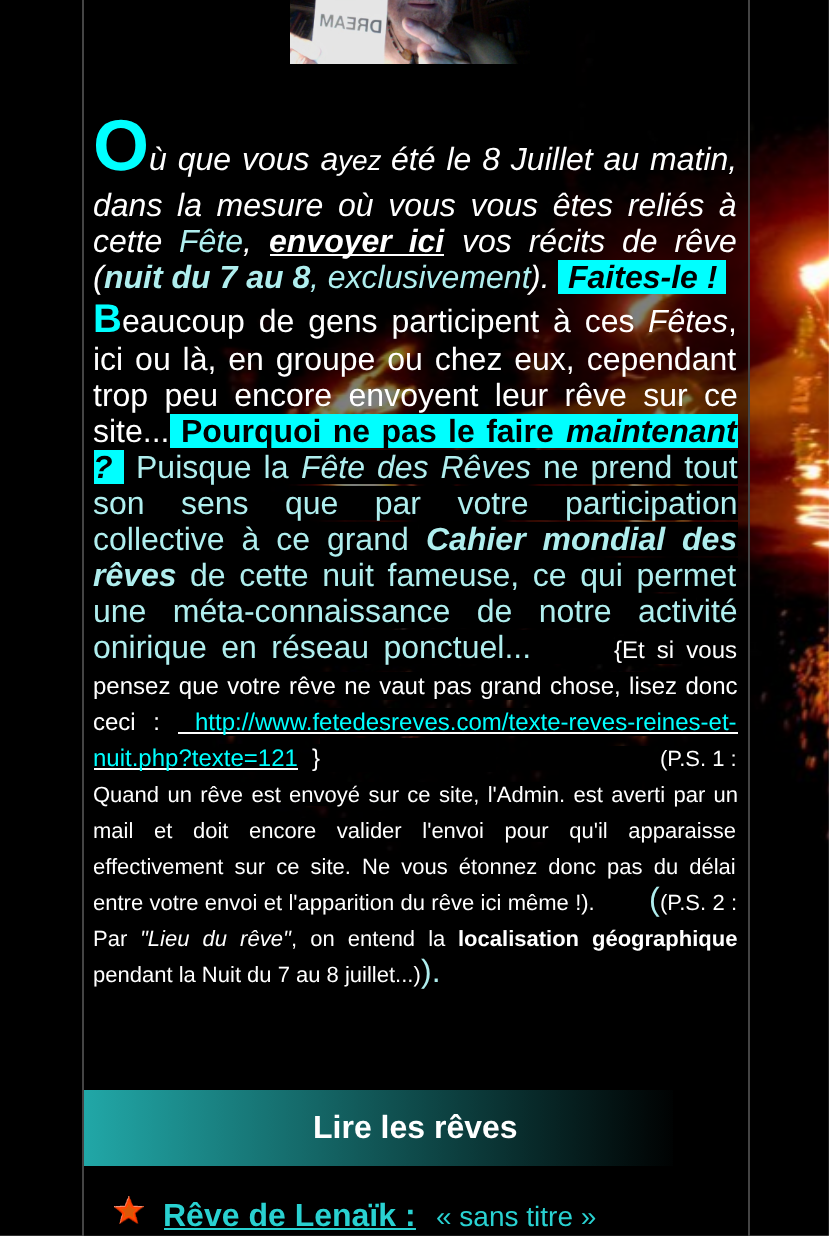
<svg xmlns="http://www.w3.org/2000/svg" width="829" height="1236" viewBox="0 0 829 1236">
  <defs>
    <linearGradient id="g1" gradientUnits="userSpaceOnUse" x1="84" y1="1128" x2="748" y2="1128"><stop offset="0" stop-color="rgb(33,167,167)"/><stop offset="0.9" stop-color="rgb(0,0,0)"/></linearGradient>
  </defs>
  <rect width="100%" height="100%" fill="rgb(255,255,255)"/>
  <image x="0" y="0" width="829" height="1236" href="pic1.png"/>
  <rect x="84" y="141" width="664" height="1095" fill="rgba(0,0,0,0.5)"/>
  <path d="M92-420H740C746-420 750-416 750-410V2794C750 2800 746 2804 740 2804H92C86 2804 82 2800 82 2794V-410C82-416 86-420 92-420ZM92-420H740C744-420 748-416 748-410V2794C748 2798 744 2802 740 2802H92C88 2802 84 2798 84 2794V-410C84-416 88-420 92-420Z" fill="rgb(68,68,68)" fill-rule="evenodd"/>
  <image x="290" y="0" width="240" height="64" href="pic2.png"/>
  <text x="93" y="170" font-family="Liberation Sans" font-size="72" font-weight="bold" fill="rgb(0,255,255)">O</text>
  <text x="149" y="170" word-spacing="2" font-family="Liberation Sans" font-size="32" font-style="italic" fill="rgb(255,255,255)">ù que vous a</text>
  <text x="338" y="170" font-family="Liberation Sans" font-size="28" font-style="italic" fill="rgb(255,255,255)">yez</text>
  <g font-family="Liberation Sans" font-size="32" font-style="italic" fill="rgb(255,255,255)">
    <text x="391" y="170" word-spacing="2">été le 8 Juillet au matin,</text>
    <text>
      <tspan x="93" y="216" word-spacing="5.75">dans la mesure où vous vous êtes reliés à</tspan>
      <tspan x="93" y="252">cette</tspan>
    </text>
  </g>
  <text x="179" y="252" font-family="Liberation Sans" font-size="32" font-style="italic" fill="rgb(175,238,238)">Fête</text>
  <text x="243" y="252" font-family="Liberation Sans" font-size="32" font-style="italic" fill="rgb(255,255,255)">,</text>
  <rect x="270" y="254" width="174" height="2" fill="rgb(255,255,255)"/>
  <text x="269" y="252" word-spacing="8" font-family="Liberation Sans" font-size="32" font-weight="bold" font-style="italic" fill="rgb(255,255,255)">envoyer ici</text>
  <g font-family="Liberation Sans" font-size="32" font-style="italic" fill="rgb(255,255,255)">
    <text x="462" y="252" word-spacing="8">vos récits de rêve</text>
    <text x="93" y="288">(</text>
  </g>
  <text x="104" y="288" font-family="Liberation Sans" font-size="32" font-weight="bold" font-style="italic" fill="rgb(175,238,238)">nuit du 7 au 8</text>
  <text x="310" y="288" font-family="Liberation Sans" font-size="32" font-style="italic" fill="rgb(175,238,238)">, exclusivement</text>
  <text x="530" y="288" font-family="Liberation Sans" font-size="32" font-style="italic" fill="rgb(255,255,255)">).</text>
  <rect x="558" y="260" width="168" height="34" fill="rgb(0,255,255)"/>
  <text x="568" y="288" font-family="Liberation Sans" font-size="32" font-weight="bold" font-style="italic" fill="rgb(0,0,0)">Faites-le !</text>
  <text x="93" y="332" font-family="Liberation Sans" font-size="40" font-weight="bold" fill="rgb(0,255,255)">B</text>
  <text x="122" y="332" word-spacing="5" font-family="Liberation Sans" font-size="32" fill="rgb(255,255,255)">eaucoup de gens participent à ces</text>
  <text x="648" y="332" font-family="Liberation Sans" font-size="32" font-style="italic" fill="rgb(255,255,255)">Fêtes</text>
  <g font-family="Liberation Sans" font-size="32" fill="rgb(255,255,255)">
    <text x="728" y="332">,</text>
    <text>
      <tspan x="93" y="370" word-spacing="3">ici ou là, en groupe ou chez eux, cependant</tspan>
      <tspan x="93" y="406" word-spacing="7.5">trop peu encore envoyent leur rêve sur ce</tspan>
      <tspan x="93" y="442">site...</tspan>
    </text>
  </g>
  <rect x="170" y="414" width="568" height="34" fill="rgb(0,255,255)"/>
  <text x="181" y="442" word-spacing="2.5" font-family="Liberation Sans" font-size="32" font-weight="bold" fill="rgb(0,0,0)">Pourquoi ne pas le faire</text>
  <text x="566" y="442" font-family="Liberation Sans" font-size="32" font-weight="bold" font-style="italic" fill="rgb(0,0,0)">maintenant</text>
  <rect x="94" y="450" width="30" height="34" fill="rgb(0,255,255)"/>
  <text x="93" y="478" font-family="Liberation Sans" font-size="32" font-weight="bold" font-style="italic" fill="rgb(0,0,0)">?</text>
  <rect x="285" y="450" width="453" height="34" fill="rgb(0,0,0)"/>
  <text x="136" y="478" word-spacing="3" font-family="Liberation Sans" font-size="32" fill="rgb(175,238,238)">Puisque la</text>
  <text x="301" y="478" word-spacing="3" font-family="Liberation Sans" font-size="32" font-style="italic" fill="rgb(175,238,238)">Fête des Rêves</text>
  <text x="543" y="478" word-spacing="3" font-family="Liberation Sans" font-size="32" fill="rgb(175,238,238)">ne prend tout</text>
  <rect x="290" y="486" width="448" height="34" fill="rgb(0,0,0)"/>
  <text x="93" y="514" word-spacing="27.5" font-family="Liberation Sans" font-size="32" fill="rgb(175,238,238)">son sens que par votre participation</text>
  <rect x="319" y="522" width="99" height="31" fill="rgb(0,0,0)"/>
  <text x="93" y="550" word-spacing="8" font-family="Liberation Sans" font-size="32" fill="rgb(175,238,238)">collective à ce grand</text>
  <rect x="458" y="522" width="280" height="34" fill="rgb(0,0,0)"/>
  <g font-family="Liberation Sans" font-size="32" font-weight="bold" font-style="italic" fill="rgb(175,238,238)">
    <text x="426" y="550" word-spacing="8">Cahier mondial des</text>
    <text x="93" y="586">rêves</text>
  </g>
  <rect x="604" y="558" width="134" height="34" fill="rgb(0,0,0)"/>
  <text x="190" y="586" word-spacing="4.75" font-family="Liberation Sans" font-size="32" fill="rgb(175,238,238)">de cette nuit fameuse, ce qui permet</text>
  <rect x="394" y="594" width="302" height="34" fill="rgb(0,0,0)"/>
  <text x="93" y="622" word-spacing="17.5" font-family="Liberation Sans" font-size="32" fill="rgb(175,238,238)">une méta-connaissance de notre activité</text>
  <rect x="364" y="630" width="237" height="34" fill="rgb(0,0,0)"/>
  <text x="93" y="658" word-spacing="5.5" font-family="Liberation Sans" font-size="32" fill="rgb(175,238,238)">onirique en réseau ponctuel...</text>
  <rect x="615" y="636" width="66" height="28" fill="rgb(0,0,0)"/>
  <text x="614" y="658" word-spacing="5.5" font-family="Liberation Sans" font-size="24" fill="rgb(255,255,255)">{Et si vous</text>
  <rect x="303" y="672" width="431" height="28" fill="rgb(0,0,0)"/>
  <g font-family="Liberation Sans" font-size="24" fill="rgb(255,255,255)">
    <text>
      <tspan x="93" y="694" word-spacing="1.75">pensez que votre rêve ne vaut pas grand chose, lisez donc</tspan>
      <tspan x="93" y="730" word-spacing="11">ceci :</tspan>
    </text>
  </g>
  <rect x="213" y="708" width="474" height="28" fill="rgb(0,0,0)"/>
  <rect x="178" y="732" width="560" height="2" fill="rgb(255,255,255)"/>
  <text x="195" y="730" font-family="Liberation Sans" font-size="24" fill="rgb(0,255,255)">http://www.fetedesreves.com/texte-reves-reines-et-</text>
  <rect x="219" y="744" width="37" height="28" fill="rgb(0,0,0)"/>
  <rect x="94" y="768" width="204" height="2" fill="rgb(255,255,255)"/>
  <text x="93" y="766" font-family="Liberation Sans" font-size="24" fill="rgb(0,255,255)">nuit.php?texte=121</text>
  <rect x="314" y="744" width="6" height="7" fill="rgb(0,0,0)"/>
  <text x="312" y="766" font-family="Liberation Sans" font-size="24" fill="rgb(255,255,255)">}</text>
  <rect x="320" y="738" width="176" height="34" fill="rgb(0,0,0)"/>
  <text x="660" y="766" font-family="Liberation Sans" font-size="22" fill="rgb(255,255,255)">(P.S. 1 :</text>
  <rect x="531" y="746" width="118" height="24" fill="rgb(0,0,0)"/>
  <rect x="253" y="782" width="389" height="24" fill="rgb(0,0,0)"/>
  <text x="93" y="802" word-spacing="2.25" font-family="Liberation Sans" font-size="22" fill="rgb(255,255,255)">Quand un rêve est envoyé sur ce site, l'Admin. est averti par un</text>
  <rect x="301" y="818" width="243" height="24" fill="rgb(0,0,0)"/>
  <g font-family="Liberation Sans" font-size="22" fill="rgb(255,255,255)">
    <text>
      <tspan x="93" y="838" word-spacing="14.5">mail et doit encore valider l'envoi pour qu'il apparaisse</tspan>
      <tspan x="93" y="874" word-spacing="5">effectivement sur ce site. Ne vous étonnez donc pas du délai</tspan>
      <tspan x="93" y="910" word-spacing="0.25">entre votre envoi et l'apparition du rêve ici même !).</tspan>
    </text>
  </g>
  <text x="649" y="910" font-family="Liberation Sans" font-size="32" fill="rgb(175,238,238)">(</text>
  <g font-family="Liberation Sans" font-size="22" fill="rgb(255,255,255)">
    <text x="660" y="910" word-spacing="0.25">(P.S. 2 :</text>
    <text x="93" y="946">Par</text>
  </g>
  <text x="140" y="946" word-spacing="7" font-family="Liberation Sans" font-size="22" font-style="italic" fill="rgb(255,255,255)">"Lieu du rêve"</text>
  <text x="291" y="946" word-spacing="7" font-family="Liberation Sans" font-size="22" fill="rgb(255,255,255)">, on entend la</text>
  <text x="458" y="946" font-family="Liberation Sans" font-size="22" font-weight="bold" fill="rgb(255,255,255)">localisation</text>
  <text x="592" y="946" font-family="Liberation Sans" font-size="22" font-weight="bold" fill="rgb(255,255,255)">géographique</text>
  <text x="93" y="982" font-family="Liberation Sans" font-size="22" fill="rgb(255,255,255)">pendant la Nuit du 7 au 8 juillet...)</text>
  <text x="421" y="982" font-family="Liberation Sans" font-size="32" fill="rgb(175,238,238)">).</text>
  <rect x="84" y="1090" width="589" height="76" fill="url(#g1)"/>
  <text x="313" y="1138" font-family="Liberation Sans" font-size="32" font-weight="bold" fill="rgb(255,255,255)">Lire les rêves</text>
  <image x="114" y="1196" width="30" height="28" href="pic3.png"/>
  <text x="163" y="1226" font-family="Liberation Sans" font-size="32" font-weight="bold" fill="rgb(41,209,209)">Rêve de Lenaïk :</text>
  <rect x="164" y="1228" width="252" height="2" fill="rgb(41,209,209)"/>
  <text x="436" y="1226" font-family="Liberation Sans" font-size="28" fill="rgb(41,209,209)">« sans titre »</text>
</svg>
